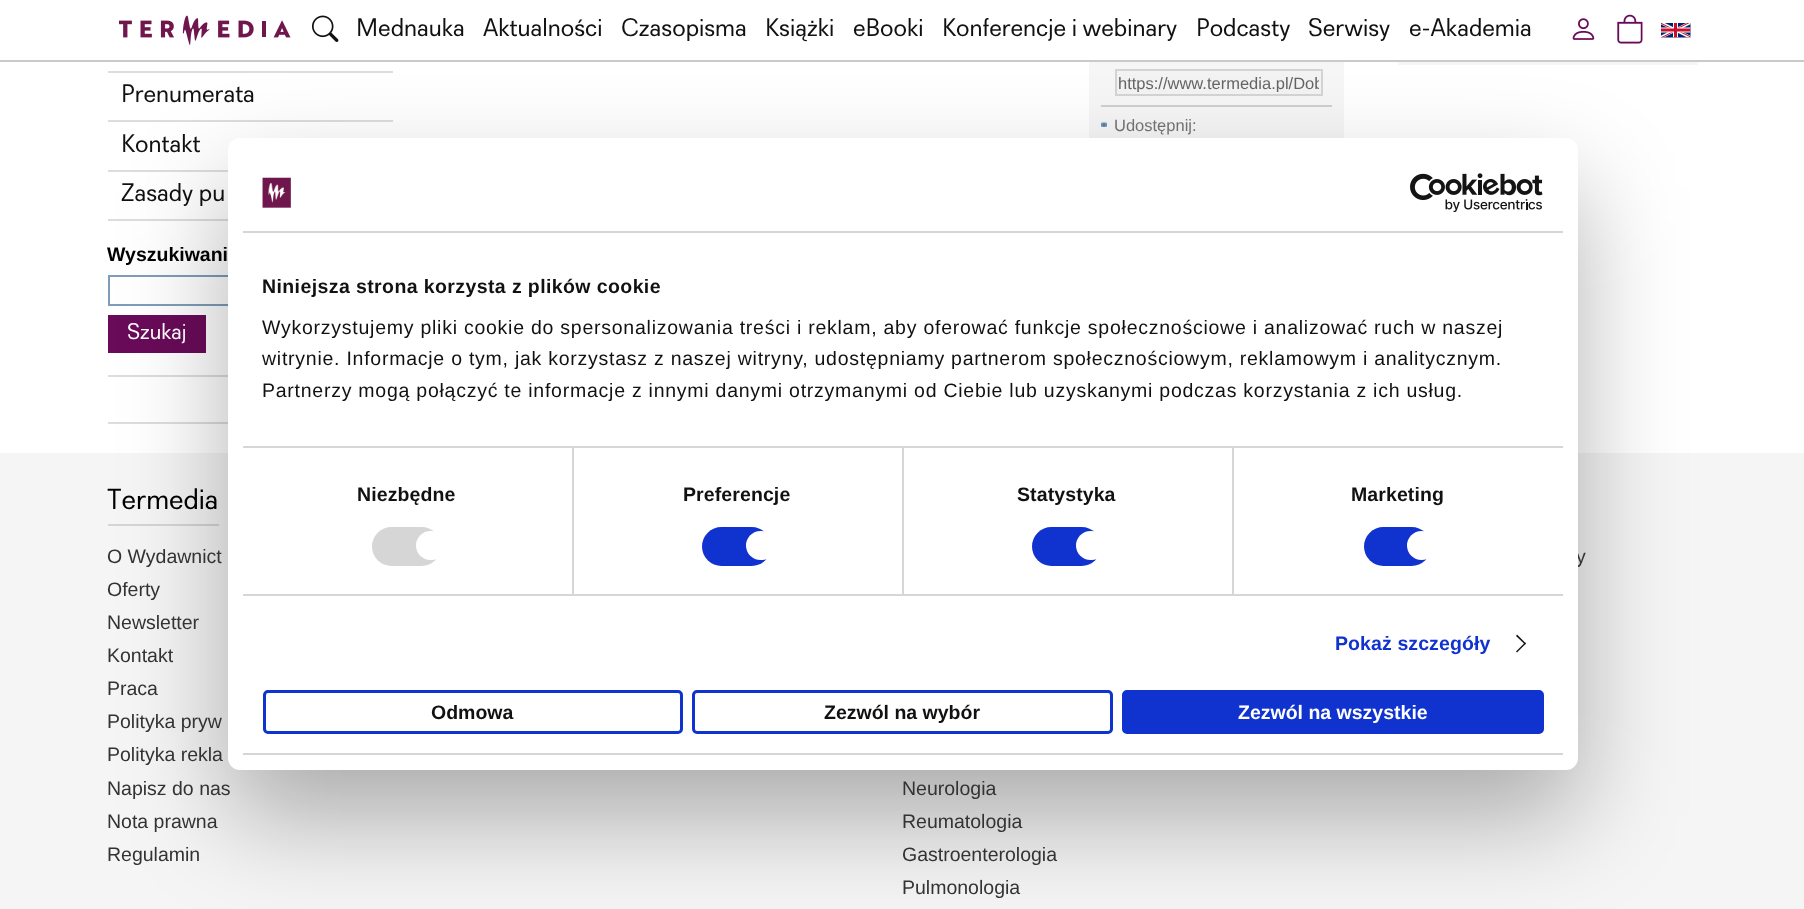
<svg xmlns="http://www.w3.org/2000/svg" width="1804" height="909" viewBox="0 0 1804 909">
  <defs>
    <clipPath id="clip1"><rect x="1119" y="74" width="200" height="18"/></clipPath>
  </defs>
  <rect width="100%" height="100%" fill="rgb(245,245,245)"/>
  <rect x="0" y="0" width="1804" height="60" fill="rgb(255,255,255)"/>
  <rect x="0" y="60" width="1804" height="2" fill="rgb(202,202,202)"/>
  <image x="119" y="15" width="172" height="30" href="pic1.png"/>
  <image x="312" y="15" width="27" height="27" href="pic2.png"/>
  <g font-family="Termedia" font-size="25.25" fill="rgb(17,17,17)">
    <text x="356" y="36">Mednauka</text>
    <text x="483" y="36">Aktualności</text>
    <text x="621" y="36">Czasopisma</text>
    <text x="765" y="36">Książki</text>
    <text x="853" y="36">eBooki</text>
    <text x="942" y="36">Konferencje i webinary</text>
    <text x="1196" y="36">Podcasty</text>
    <text x="1308" y="36">Serwisy</text>
    <text x="1409" y="36">e-Akademia</text>
  </g>
  <image x="1572" y="18" width="23" height="22" href="pic3.png"/>
  <image x="1617" y="14" width="26" height="30" href="pic4.png"/>
  <image x="1661" y="23" width="30" height="15" href="pic5.png"/>
  <rect x="0" y="62" width="1804" height="391" fill="rgb(255,255,255)"/>
  <rect x="1398" y="62" width="300" height="3" fill="rgb(246,246,246)"/>
  <rect x="108" y="71" width="285" height="2" fill="rgb(221,221,221)"/>
  <rect x="108" y="120" width="285" height="2" fill="rgb(221,221,221)"/>
  <text x="121" y="102" font-family="Termedia" font-size="25.25" fill="rgb(17,17,17)">Prenumerata</text>
  <rect x="108" y="170" width="120" height="2" fill="rgb(221,221,221)"/>
  <text x="121" y="152" font-family="Termedia" font-size="25.25" fill="rgb(17,17,17)">Kontakt</text>
  <rect x="108" y="219" width="120" height="2" fill="rgb(221,221,221)"/>
  <text x="121" y="201" font-family="Termedia" font-size="25.25" fill="rgb(17,17,17)">Zasady pu</text>
  <rect x="108" y="375" width="120" height="2" fill="rgb(221,221,221)"/>
  <text x="107" y="261" font-family="Liberation Sans" font-size="19.5" font-weight="bold" fill="rgb(0,0,0)">Wyszukiwani</text>
  <rect x="109" y="276" width="247" height="29" fill="none" stroke="rgb(127,157,185)" stroke-width="2"/>
  <rect x="108" y="315" width="98" height="38" fill="rgb(105,11,89)"/>
  <text x="127" y="339" font-family="Termedia" font-size="22.5" fill="rgb(255,255,255)">Szukaj</text>
  <rect x="108" y="422" width="120" height="2" fill="rgb(221,221,221)"/>
  <rect x="1089" y="62" width="255" height="76" fill="rgb(246,246,246)"/>
  <rect x="1101" y="105" width="231" height="2" fill="rgb(208,208,208)"/>
  <rect x="1116" y="70" width="206" height="25" fill="rgb(243,243,243)" stroke="rgb(212,212,212)" stroke-width="2"/>
  <g clip-path="url(#clip1)">
    <text x="1118" y="89" font-family="Liberation Sans" font-size="16.5" fill="rgb(101,101,101)">https://www.termedia.pl/Dob</text>
  </g>
  <image x="1101" y="122" width="6" height="5" href="pic6.png"/>
  <text x="1114" y="131" font-family="Liberation Sans" font-size="16.5" fill="rgb(117,117,117)">Udostępnij:</text>
  <rect x="108" y="524" width="111" height="2" fill="rgb(213,213,213)"/>
  <rect x="228" y="186" width="1350" height="632" rx="12" fill="rgba(0,0,0,0.3)" filter="blur(51px)"/>
  <text x="1576" y="563" font-family="Liberation Sans" font-size="19.5" fill="rgb(51,51,51)">y</text>
  <rect x="228" y="138" width="1350" height="632" rx="12" fill="rgb(255,255,255)"/>
  <rect x="243" y="231" width="1320" height="2" fill="rgb(214,214,214)"/>
  <image x="262" y="177" width="29" height="31" href="pic7.png"/>
  <image x="1410" y="173" width="133" height="39" href="pic8.png"/>
  <rect x="572" y="447" width="2" height="147" fill="rgb(214,214,214)"/>
  <rect x="902" y="447" width="2" height="147" fill="rgb(214,214,214)"/>
  <rect x="1232" y="447" width="2" height="147" fill="rgb(214,214,214)"/>
  <rect x="243" y="446" width="1320" height="2" fill="rgb(214,214,214)"/>
  <text x="262" y="293" font-family="Liberation Sans" font-size="19.5" font-weight="bold" letter-spacing="0.4" fill="rgb(17,17,17)">Niniejsza strona korzysta z plików cookie</text>
  <g font-family="Liberation Sans" font-size="19.5" letter-spacing="0.75" fill="rgb(17,17,17)">
    <text>
      <tspan x="262" y="334">Wykorzystujemy pliki cookie do spersonalizowania treści i reklam, aby oferować funkcje społecznościowe i analizować ruch w naszej</tspan>
      <tspan x="262" y="365">witrynie. Informacje o tym, jak korzystasz z naszej witryny, udostępniamy partnerom społecznościowym, reklamowym i analitycznym.</tspan>
      <tspan x="262" y="397">Partnerzy mogą połączyć te informacje z innymi danymi otrzymanymi od Ciebie lub uzyskanymi podczas korzystania z ich usług.</tspan>
    </text>
  </g>
  <rect x="243" y="594" width="1320" height="2" fill="rgb(214,214,214)"/>
  <text x="357" y="501" font-family="Liberation Sans" font-size="19.5" font-weight="bold" letter-spacing="0.1" fill="rgb(17,17,17)">Niezbędne</text>
  <rect x="372" y="527" width="69" height="39" rx="19.5" fill="rgb(214,214,214)"/>
  <rect x="416" y="531" width="30" height="29" rx="14.5" fill="rgb(255,255,255)"/>
  <text x="683" y="501" font-family="Liberation Sans" font-size="19.5" font-weight="bold" letter-spacing="0.1" fill="rgb(17,17,17)">Preferencje</text>
  <rect x="702" y="527" width="69" height="39" rx="19.5" fill="rgb(16,50,207)"/>
  <rect x="746" y="531" width="30" height="29" rx="14.5" fill="rgb(255,255,255)"/>
  <text x="1017" y="501" font-family="Liberation Sans" font-size="19.5" font-weight="bold" letter-spacing="0.1" fill="rgb(17,17,17)">Statystyka</text>
  <rect x="1032" y="527" width="69" height="39" rx="19.5" fill="rgb(16,50,207)"/>
  <rect x="1076" y="531" width="30" height="29" rx="14.5" fill="rgb(255,255,255)"/>
  <text x="1351" y="501" font-family="Liberation Sans" font-size="19.5" font-weight="bold" letter-spacing="0.1" fill="rgb(17,17,17)">Marketing</text>
  <rect x="1364" y="527" width="67" height="39" rx="19.5" fill="rgb(16,50,207)"/>
  <circle cx="1421.5" cy="545.5" r="14.5" fill="rgb(255,255,255)"/>
  <text x="1335" y="650" font-family="Liberation Sans" font-size="19.5" font-weight="bold" letter-spacing="0.1" fill="rgb(16,50,207)">Pokaż szczegóły</text>
  <path d="M1517 634.5L1526 643.5L1525 644.5L1516 636Z" fill="rgb(20,20,20)"/>
  <path d="M1525 642.5L1526 643.5L1517 652.5L1516 651.5Z" fill="rgb(20,20,20)"/>
  <rect x="243" y="753" width="1320" height="2" fill="rgb(214,214,214)"/>
  <rect x="264.5" y="691.5" width="417" height="41" rx="3.5" fill="none" stroke="rgb(16,50,207)" stroke-width="3"/>
  <text x="431" y="719" font-family="Liberation Sans" font-size="19.5" font-weight="bold" fill="rgb(17,17,17)">Odmowa</text>
  <rect x="693.5" y="691.5" width="418" height="41" rx="3.5" fill="none" stroke="rgb(16,50,207)" stroke-width="3"/>
  <text x="824" y="719" font-family="Liberation Sans" font-size="19.5" font-weight="bold" fill="rgb(17,17,17)">Zezwól na wybór</text>
  <rect x="1123.5" y="691.5" width="419" height="41" rx="3.5" fill="rgb(16,50,207)" stroke="rgb(16,50,207)" stroke-width="3"/>
  <text x="1238" y="719" font-family="Liberation Sans" font-size="19.5" font-weight="bold" fill="rgb(255,255,255)">Zezwól na wszystkie</text>
  <text x="107" y="509" font-family="Termedia" font-size="29" fill="rgb(0,0,0)">Termedia</text>
  <g font-family="Liberation Sans" font-size="19.5" fill="rgb(51,51,51)">
    <text>
      <tspan x="107" y="563">O Wydawnict</tspan>
      <tspan x="107" y="596">Oferty</tspan>
      <tspan x="107" y="629">Newsletter</tspan>
      <tspan x="107" y="662">Kontakt</tspan>
      <tspan x="107" y="695">Praca</tspan>
      <tspan x="107" y="728">Polityka pryw</tspan>
      <tspan x="107" y="761">Polityka rekla</tspan>
      <tspan x="107" y="795">Napisz do nas</tspan>
      <tspan x="107" y="828">Nota prawna</tspan>
      <tspan x="107" y="861">Regulamin</tspan>
    </text>
    <text>
      <tspan x="902" y="795">Neurologia</tspan>
      <tspan x="902" y="828">Reumatologia</tspan>
      <tspan x="902" y="861">Gastroenterologia</tspan>
      <tspan x="902" y="894">Pulmonologia</tspan>
    </text>
  </g>
</svg>
